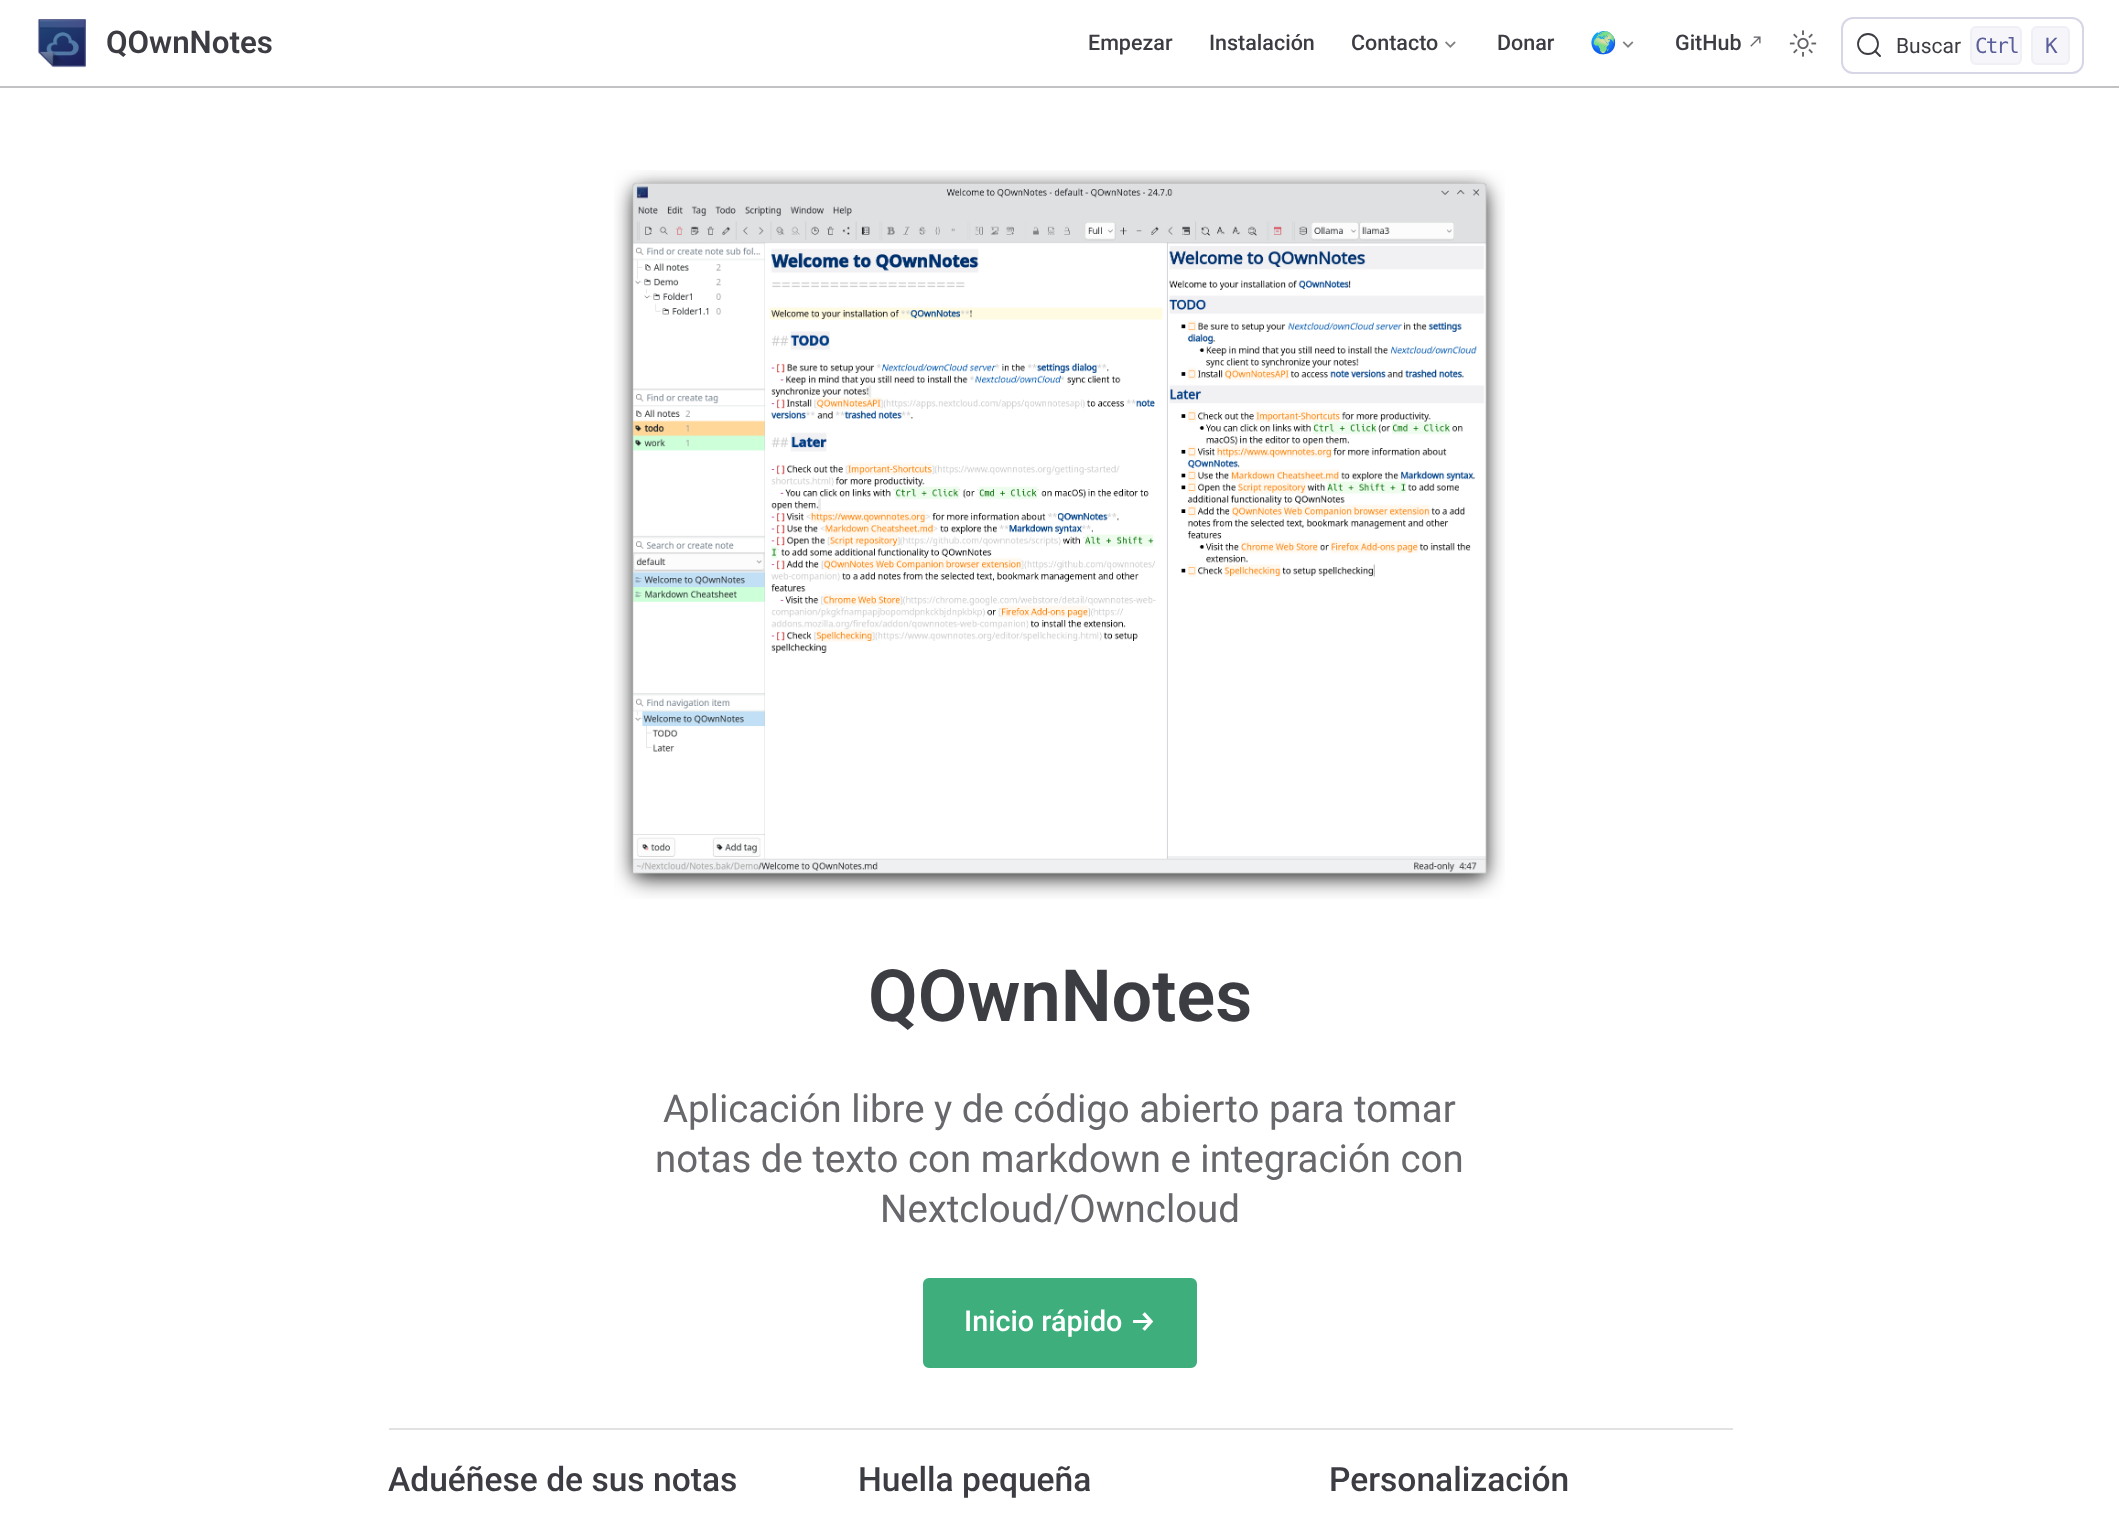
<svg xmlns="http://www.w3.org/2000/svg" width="2119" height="1534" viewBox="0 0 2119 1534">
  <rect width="100%" height="100%" fill="rgb(255,255,255)"/>
  <rect x="0" y="86" width="2119" height="2" fill="rgb(194,194,196)"/>
  <image x="37" y="19" width="49" height="49" href="pic1.png"/>
  <text x="106" y="53" font-family="Roboto" font-size="31.25" font-weight="600" fill="rgb(60,60,67)">QOwnNotes</text>
  <g font-family="Roboto" font-size="21.5" font-weight="500" fill="rgb(60,60,67)">
    <text x="1088" y="50">Empezar</text>
    <text x="1209" y="50">Instalación</text>
    <text x="1351" y="50">Contacto</text>
  </g>
  <image x="1445" y="41" width="11" height="7" href="pic2.png"/>
  <text x="1497" y="50" font-family="Roboto" font-size="21.5" font-weight="500" fill="rgb(60,60,67)">Donar</text>
  <text x="1590" y="50" font-family="Noto Color Emoji" font-size="21.5" fill="rgb(60,60,67)">🌍</text>
  <image x="1622" y="41" width="12" height="7" href="pic3.png"/>
  <text x="1675" y="50" font-family="Roboto" font-size="21.5" font-weight="500" fill="rgb(60,60,67)">GitHub</text>
  <image x="1750" y="36" width="11" height="11" href="pic4.png"/>
  <image x="1789" y="30" width="28" height="27" href="pic5.png"/>
  <rect x="1842" y="18" width="241" height="55" rx="11" fill="none" stroke="rgb(214,214,231)" stroke-width="2"/>
  <circle cx="1868" cy="44" r="10" fill="none" stroke="rgb(60,60,67)" stroke-width="1.8"/>
  <path d="M1880 56L1875 51" fill="none" stroke="rgb(60,60,67)" stroke-width="2" stroke-linecap="round" stroke-linejoin="round"/>
  <text x="1896" y="53" font-family="Roboto" font-size="21" fill="rgb(60,60,67)">Buscar</text>
  <rect x="1971" y="27" width="50" height="37" rx="5" fill="rgb(245,245,250)" stroke="rgb(239,239,246)" stroke-width="2"/>
  <text x="1975" y="53" font-family="DejaVu Sans Mono" font-size="21" letter-spacing="-2" fill="rgb(90,94,154)">Ctrl</text>
  <rect x="2032" y="27" width="37" height="37" rx="5" fill="rgb(245,245,250)" stroke="rgb(239,239,246)" stroke-width="2"/>
  <text x="2045" y="53" font-family="DejaVu Sans Mono" font-size="21" letter-spacing="-2" fill="rgb(90,94,154)">K</text>
  <image x="614" y="170" width="891" height="729" href="pic6.png"/>
  <text x="868" y="1021" font-family="Roboto" font-size="72" font-weight="600" fill="rgb(60,60,67)">QOwnNotes</text>
  <g font-family="Roboto" font-size="38.4" fill="rgb(103,103,108)">
    <text x="663" y="1122">Aplicación libre y de código abierto para tomar</text>
    <text x="655" y="1172">notas de texto con markdown e integración con</text>
    <text x="880" y="1222">Nextcloud/Owncloud</text>
  </g>
  <rect x="924.5" y="1279.5" width="271" height="87" rx="4.5" fill="rgb(62,175,124)" stroke="rgb(62,175,124)" stroke-width="3"/>
  <text x="964" y="1331" font-family="Roboto" font-size="28.75" font-weight="500" fill="rgb(255,255,255)">Inicio rápido</text>
  <text x="1130" y="1331" font-family="Fira Sans" font-size="28.75" font-weight="500" fill="rgb(255,255,255)">→</text>
  <rect x="389" y="1428" width="1344" height="2" fill="rgb(226,226,227)"/>
  <g font-family="Roboto" font-size="33.6" font-weight="500" fill="rgb(60,60,67)">
    <text x="388" y="1491">Aduéñese de sus notas</text>
    <text x="858" y="1491">Huella pequeña</text>
    <text x="1329" y="1491">Personalización</text>
  </g>
</svg>
